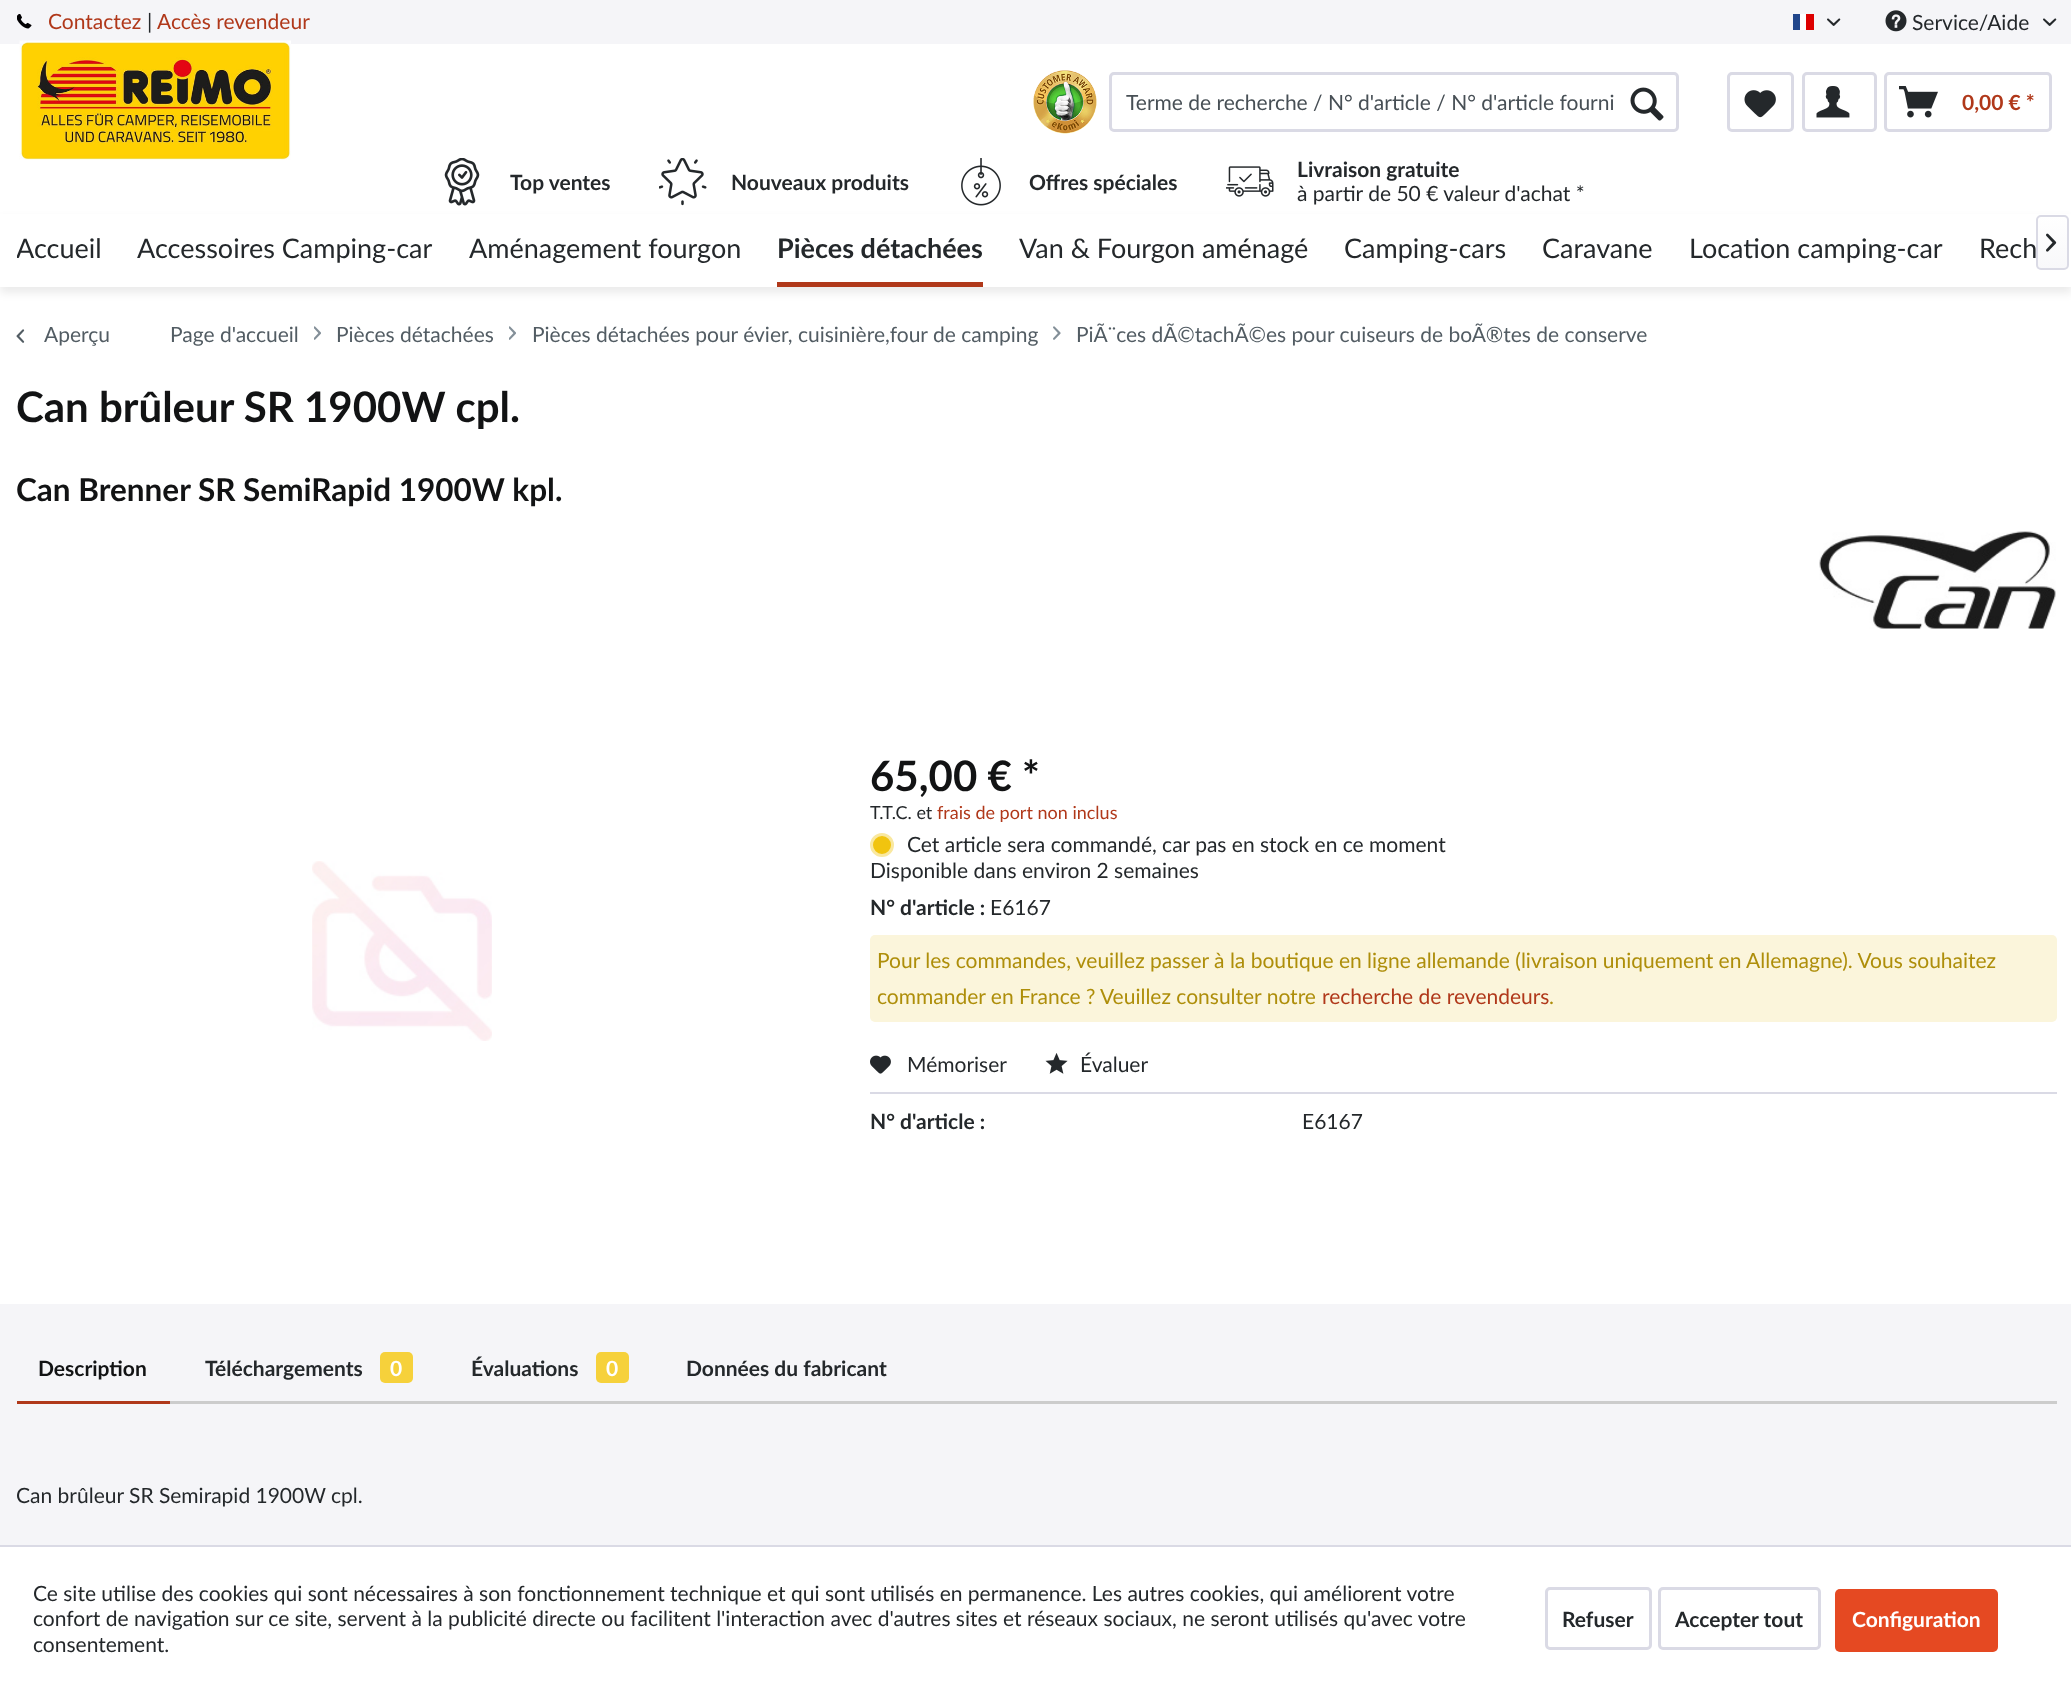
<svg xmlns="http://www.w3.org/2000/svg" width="2071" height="1689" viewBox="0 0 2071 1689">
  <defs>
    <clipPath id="clip1"><rect x="17" y="213" width="2040" height="74"/></clipPath>
    <linearGradient id="g1" gradientUnits="userSpaceOnUse" x1="2052" y1="216" x2="2052" y2="269"><stop offset="0" stop-color="rgb(255,255,255)"/><stop offset="1" stop-color="rgb(248,248,250)"/></linearGradient>
  </defs>
  <rect width="100%" height="100%" fill="rgb(255,255,255)"/>
  <rect x="0" y="0" width="2071" height="44" fill="rgb(245,245,248)"/>
  <image x="17" y="14" width="15" height="15" href="pic1.png"/>
  <text x="48" y="29" font-family="Lato" font-size="21" fill="rgb(176,56,26)">Contactez</text>
  <text x="147" y="29" font-family="Lato" font-size="21" fill="rgb(36,40,43)">|</text>
  <text x="157" y="29" font-family="Lato" font-size="21" fill="rgb(176,56,26)">Accès revendeur</text>
  <rect x="1793" y="14" width="7" height="16" fill="rgb(33,70,139)"/>
  <rect x="1800" y="14" width="6" height="16" fill="rgb(255,255,255)"/>
  <rect x="1806" y="14" width="8" height="16" fill="rgb(221,0,0)"/>
  <image x="1827" y="18" width="14" height="8" href="pic2.png"/>
  <image x="1885" y="10" width="22" height="22" href="pic3.png"/>
  <text x="1912" y="30" font-family="Lato" font-size="21" fill="rgb(36,40,43)">Service/Aide</text>
  <image x="2043" y="18" width="14" height="8" href="pic2.png"/>
  <image x="19" y="40" width="272" height="120" href="pic4.png"/>
  <image x="1033" y="70" width="64" height="64" href="pic5.png"/>
  <rect x="1110.5" y="73.5" width="567" height="57" rx="3.5" fill="none" stroke="rgb(218,218,229)" stroke-width="3"/>
  <text x="1126" y="110" font-family="Lato" font-size="21" fill="rgb(71,79,85)">Terme de recherche / N° d'article / N° d'article fourni</text>
  <image x="1630" y="87" width="34" height="34" href="pic6.png"/>
  <rect x="1728.5" y="73.5" width="64" height="57" rx="3.5" fill="none" stroke="rgb(218,218,229)" stroke-width="3"/>
  <image x="1744" y="90" width="32" height="28" href="pic7.png"/>
  <rect x="1803.5" y="73.5" width="72" height="57" rx="3.5" fill="none" stroke="rgb(218,218,229)" stroke-width="3"/>
  <image x="1816" y="86" width="34" height="32" href="pic8.png"/>
  <rect x="1885.5" y="73.5" width="165" height="57" rx="3.5" fill="none" stroke="rgb(218,218,229)" stroke-width="3"/>
  <image x="1899" y="86" width="39" height="32" href="pic9.png"/>
  <text x="1962" y="110" font-family="Lato" font-size="21" font-weight="bold" fill="rgb(176,56,26)">0,00 € *</text>
  <image x="444" y="158" width="36" height="48" href="pic10.png"/>
  <text x="510" y="190" font-family="Lato" font-size="21" font-weight="bold" fill="rgb(36,40,43)">Top ventes</text>
  <image x="659" y="158" width="48" height="48" href="pic11.png"/>
  <text x="731" y="190" font-family="Lato" font-size="21" font-weight="bold" fill="rgb(36,40,43)">Nouveaux produits</text>
  <image x="961" y="158" width="40" height="48" href="pic12.png"/>
  <text x="1029" y="190" font-family="Lato" font-size="21" font-weight="bold" fill="rgb(36,40,43)">Offres spéciales</text>
  <image x="1226" y="166" width="48" height="31" href="pic13.png"/>
  <text x="1297" y="177" font-family="Lato" font-size="21" font-weight="bold" fill="rgb(36,40,43)">Livraison gratuite</text>
  <text x="1297" y="201" font-family="Lato" font-size="21" fill="rgb(36,40,43)">à partir de 50 € valeur d'achat *</text>
  <rect x="0" y="219" width="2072" height="74" fill="rgba(0,0,0,0.08)" filter="blur(4.5px)"/>
  <rect x="0" y="214" width="2071" height="73" fill="rgb(255,255,255)"/>
  <g clip-path="url(#clip1)">
    <text x="16" y="258" font-family="Lato" font-size="27" fill="rgb(36,40,43)">Accueil</text>
  </g>
  <g font-family="Lato" font-size="27" fill="rgb(36,40,43)">
    <text x="137" y="258">Accessoires Camping-car</text>
    <text x="469" y="258">Aménagement fourgon</text>
  </g>
  <rect x="777" y="282" width="206" height="5" fill="rgb(176,56,26)"/>
  <text x="777" y="258" font-family="Lato" font-size="27" font-weight="bold" fill="rgb(36,40,43)">Pièces détachées</text>
  <g font-family="Lato" font-size="27" fill="rgb(36,40,43)">
    <text x="1019" y="258">Van &amp; Fourgon aménagé</text>
    <text x="1344" y="258">Camping-cars</text>
    <text x="1542" y="258">Caravane</text>
    <text x="1689" y="258">Location camping-car</text>
    <text x="1979" y="258">Rech</text>
  </g>
  <rect x="2037" y="216" width="30" height="53" rx="3" fill="url(#g1)"/>
  <rect x="2037" y="216" width="31" height="53" rx="4" fill="none" stroke="rgb(218,218,229)" stroke-width="2"/>
  <image x="2046" y="233" width="11" height="19" href="pic14.png"/>
  <image x="16" y="329" width="9" height="14" href="pic15.png"/>
  <g font-family="Lato" font-size="21" fill="rgb(82,92,99)">
    <text x="44" y="342">Aperçu</text>
    <text x="170" y="342">Page d'accueil</text>
  </g>
  <image x="314" y="326" width="7" height="14" href="pic16.png"/>
  <text x="336" y="342" font-family="Lato" font-size="21" fill="rgb(82,92,99)">Pièces détachées</text>
  <image x="509" y="326" width="7" height="14" href="pic16.png"/>
  <text x="532" y="342" font-family="Lato" font-size="21" fill="rgb(82,92,99)">Pièces détachées pour évier, cuisinière,four de camping</text>
  <image x="1053" y="326" width="8" height="14" href="pic17.png"/>
  <text x="1076" y="342" font-family="Lato" font-size="21" fill="rgb(82,92,99)">PiÃ¨ces dÃ©tachÃ©es pour cuiseurs de boÃ®tes de conserve</text>
  <text x="16" y="422" font-family="Lato" font-size="42" font-weight="bold" fill="rgb(18,19,20)">Can brûleur SR 1900W cpl.</text>
  <text x="16" y="501" font-family="Lato" font-size="31.5" font-weight="bold" fill="rgb(18,19,20)">Can Brenner SR SemiRapid 1900W kpl.</text>
  <image x="1819" y="531" width="237" height="98" href="pic18.png"/>
  <image x="312" y="861" width="180" height="180" href="pic19.png"/>
  <text x="870" y="791" font-family="Lato" font-size="42" font-weight="bold" fill="rgb(18,19,20)">65,00 € *</text>
  <text x="870" y="819" font-family="Lato" font-size="18" fill="rgb(36,40,43)">T.T.C. et</text>
  <text x="937" y="819" font-family="Lato" font-size="18" fill="rgb(176,56,26)">frais de port non inclus</text>
  <circle cx="882" cy="845" r="10.5" fill="rgb(241,196,15)" stroke="rgb(249,232,160)" stroke-width="3"/>
  <g font-family="Lato" font-size="21" fill="rgb(36,40,43)">
    <text x="907" y="852">Cet article sera commandé, car pas en stock en ce moment</text>
    <text x="870" y="878">Disponible dans environ 2 semaines</text>
  </g>
  <text x="870" y="915" font-family="Lato" font-size="21" font-weight="bold" fill="rgb(36,40,43)">N° d'article :</text>
  <text x="990" y="915" font-family="Lato" font-size="21" fill="rgb(36,40,43)">E6167</text>
  <rect x="870" y="935" width="1187" height="87" rx="5" fill="rgb(251,245,219)"/>
  <g font-family="Lato" font-size="21" fill="rgb(174,142,10)">
    <text>
      <tspan x="877" y="968">Pour les commandes, veuillez passer à la boutique en ligne allemande (livraison uniquement en Allemagne). Vous souhaitez</tspan>
      <tspan x="877" y="1004">commander en France ? Veuillez consulter notre</tspan>
    </text>
  </g>
  <text x="1322" y="1004" font-family="Lato" font-size="21" fill="rgb(176,56,26)">recherche de revendeurs</text>
  <text x="1549" y="1004" font-family="Lato" font-size="21" fill="rgb(174,142,10)">.</text>
  <rect x="870" y="1092" width="1187" height="2" fill="rgb(218,218,229)"/>
  <image x="870" y="1055" width="21" height="19" href="pic20.png"/>
  <text x="907" y="1072" font-family="Lato" font-size="21" fill="rgb(36,40,43)">Mémoriser</text>
  <image x="1045" y="1053" width="23" height="21" href="pic21.png"/>
  <text x="1080" y="1072" font-family="Lato" font-size="21" fill="rgb(36,40,43)">Évaluer</text>
  <text x="870" y="1129" font-family="Lato" font-size="21" font-weight="bold" fill="rgb(36,40,43)">N° d'article :</text>
  <text x="1302" y="1129" font-family="Lato" font-size="21" fill="rgb(36,40,43)">E6167</text>
  <rect x="0" y="1304" width="2071" height="241" fill="rgb(245,245,248)"/>
  <rect x="170" y="1401" width="1887" height="3" fill="rgb(204,204,204)"/>
  <rect x="17" y="1401" width="153" height="3" fill="rgb(176,56,26)"/>
  <text x="38" y="1376" font-family="Lato" font-size="21" font-weight="bold" fill="rgb(18,19,20)">Description</text>
  <text x="205" y="1376" font-family="Lato" font-size="21" font-weight="bold" fill="rgb(36,40,43)">Téléchargements</text>
  <rect x="380" y="1352" width="33" height="31" rx="5" fill="rgb(246,209,59)"/>
  <text x="390" y="1376" font-family="Lato" font-size="21" font-weight="bold" fill="rgb(255,255,255)">0</text>
  <text x="471" y="1376" font-family="Lato" font-size="21" font-weight="bold" fill="rgb(36,40,43)">Évaluations</text>
  <rect x="596" y="1352" width="33" height="31" rx="5" fill="rgb(246,209,59)"/>
  <text x="606" y="1376" font-family="Lato" font-size="21" font-weight="bold" fill="rgb(255,255,255)">0</text>
  <text x="686" y="1376" font-family="Lato" font-size="21" font-weight="bold" fill="rgb(36,40,43)">Données du fabricant</text>
  <text x="16" y="1503" font-family="Lato" font-size="21" fill="rgb(36,40,43)">Can brûleur SR Semirapid 1900W cpl.</text>
  <rect x="0" y="1545" width="2071" height="2" fill="rgb(218,218,229)"/>
  <g font-family="Lato" font-size="21" fill="rgb(36,40,43)">
    <text>
      <tspan x="33" y="1601">Ce site utilise des cookies qui sont nécessaires à son fonctionnement technique et qui sont utilisés en permanence. Les autres cookies, qui améliorent votre</tspan>
      <tspan x="33" y="1626">confort de navigation sur ce site, servent à la publicité directe ou facilitent l'interaction avec d'autres sites et réseaux sociaux, ne seront utilisés qu'avec votre</tspan>
      <tspan x="33" y="1652">consentement.</tspan>
    </text>
  </g>
  <rect x="1546.5" y="1588.5" width="104" height="60" rx="3.5" fill="none" stroke="rgb(218,218,229)" stroke-width="3"/>
  <text x="1562" y="1627" font-family="Lato" font-size="21" font-weight="bold" fill="rgb(36,40,43)">Refuser</text>
  <rect x="1659.5" y="1588.5" width="160" height="60" rx="3.5" fill="none" stroke="rgb(218,218,229)" stroke-width="3"/>
  <text x="1675" y="1627" font-family="Lato" font-size="21" font-weight="bold" fill="rgb(36,40,43)">Accepter tout</text>
  <rect x="1835" y="1589" width="163" height="63" rx="5" fill="rgb(229,73,34)"/>
  <text x="1852" y="1627" font-family="Lato" font-size="21" font-weight="bold" fill="rgb(255,255,255)">Configuration</text>
</svg>
